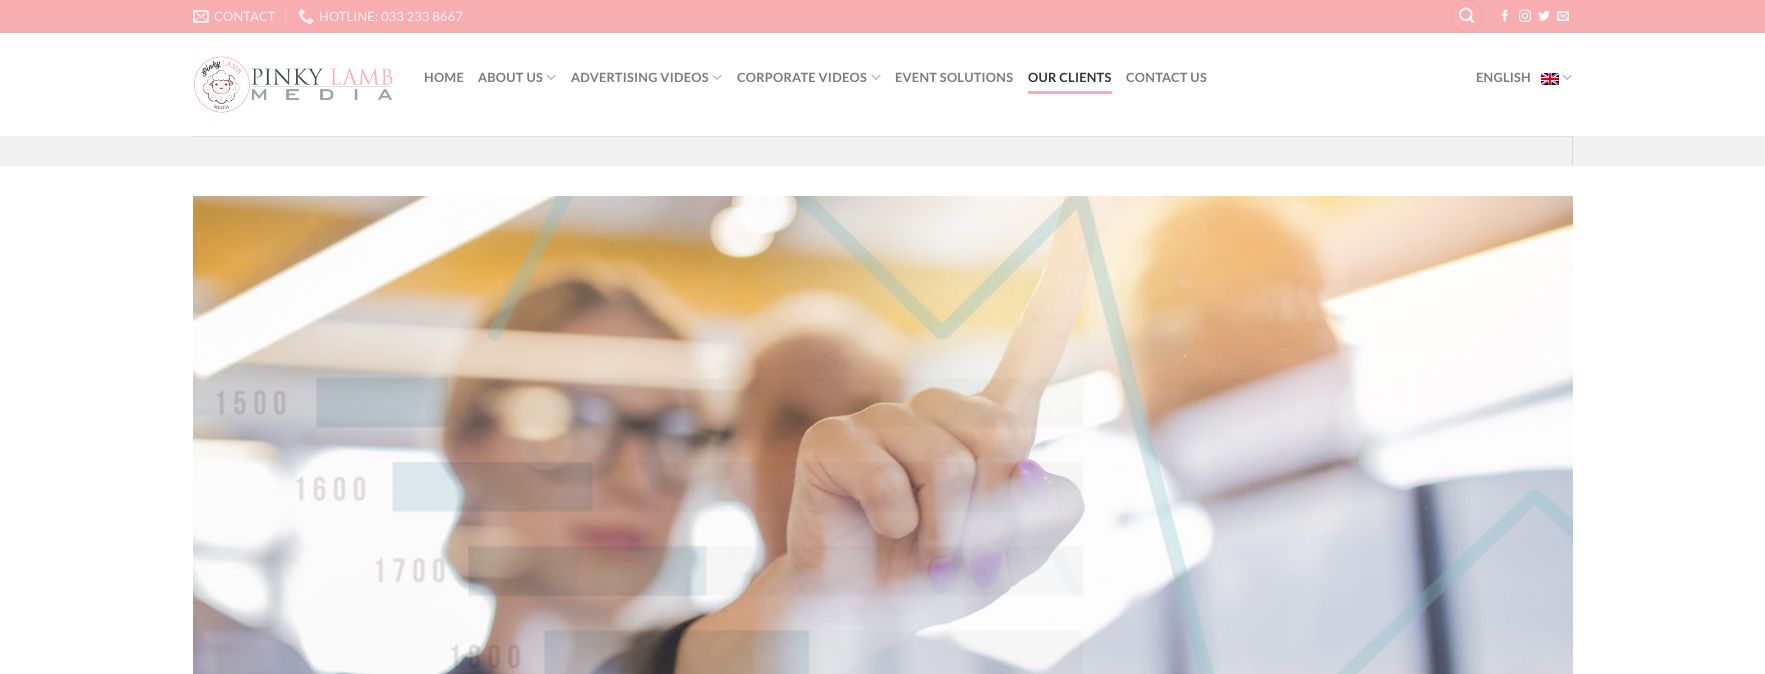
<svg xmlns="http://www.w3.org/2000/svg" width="1765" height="674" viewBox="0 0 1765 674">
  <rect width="100%" height="100%" fill="rgb(255,255,255)"/>
  <rect x="0" y="0" width="1765" height="33" fill="rgb(248,174,177)"/>
  <image x="193" y="10" width="16" height="13" href="pic1.png"/>
  <text x="214" y="21" font-family="Lato" font-size="12.75" letter-spacing="0.25" fill="rgb(254,239,239)">CONTACT</text>
  <rect x="285" y="9" width="1" height="15" fill="rgb(249,190,193)"/>
  <image x="298" y="9" width="16" height="15" href="pic2.png"/>
  <text x="319" y="21" font-family="Lato" font-size="12.75" letter-spacing="0.25" fill="rgb(254,239,239)">HOTLINE: 033 233 8667</text>
  <rect x="1451.5" y="0.5" width="31" height="32" rx="15.5" fill="none" stroke="rgb(236,165,168)"/>
  <image x="1459" y="7" width="16" height="16" href="pic3.png"/>
  <image x="1502" y="9" width="6" height="13" href="pic4.png"/>
  <image x="1519" y="9" width="12" height="13" href="pic5.png"/>
  <image x="1538" y="10" width="12" height="11" href="pic6.png"/>
  <image x="1557" y="11" width="12" height="10" href="pic7.png"/>
  <image x="193" y="56" width="200" height="57" href="pic8.png"/>
  <g font-family="Lato" font-size="12.75" font-weight="bold" letter-spacing="0.25" fill="rgb(125,125,125)">
    <text x="424" y="82">HOME</text>
    <text x="478" y="82">ABOUT US</text>
  </g>
  <image x="546" y="74" width="10" height="6" href="pic9.png"/>
  <text x="571" y="82" font-family="Lato" font-size="12.75" font-weight="bold" letter-spacing="0.25" fill="rgb(125,125,125)">ADVERTISING VIDEOS</text>
  <image x="712" y="74" width="10" height="6" href="pic9.png"/>
  <text x="737" y="82" font-family="Lato" font-size="12.75" font-weight="bold" letter-spacing="0.25" fill="rgb(125,125,125)">CORPORATE VIDEOS</text>
  <image x="871" y="74" width="10" height="6" href="pic9.png"/>
  <text x="895" y="82" font-family="Lato" font-size="12.75" font-weight="bold" letter-spacing="0.25" fill="rgb(125,125,125)">EVENT SOLUTIONS</text>
  <text x="1028" y="82" font-family="Lato" font-size="12.75" font-weight="bold" letter-spacing="0.25" fill="rgb(53,53,53)">OUR CLIENTS</text>
  <rect x="1028" y="91" width="84" height="3" fill="rgb(248,174,177)"/>
  <g font-family="Lato" font-size="12.75" font-weight="bold" letter-spacing="0.25" fill="rgb(125,125,125)">
    <text x="1126" y="82">CONTACT US</text>
    <text x="1476" y="82">ENGLISH</text>
  </g>
  <image x="1541" y="73" width="18" height="12" href="pic10.png"/>
  <image x="1562" y="74" width="10" height="6" href="pic9.png"/>
  <rect x="0" y="136" width="1765" height="30" fill="rgb(241,241,241)"/>
  <rect x="193" y="136" width="1380" height="1" fill="rgb(225,225,225)"/>
  <rect x="1572" y="136" width="1" height="30" fill="rgb(217,217,217)"/>
  <rect x="1572" y="136" width="1" height="1" fill="rgb(203,203,203)"/>
  <image x="193" y="196" width="1380" height="478" href="pic11.png"/>
</svg>
